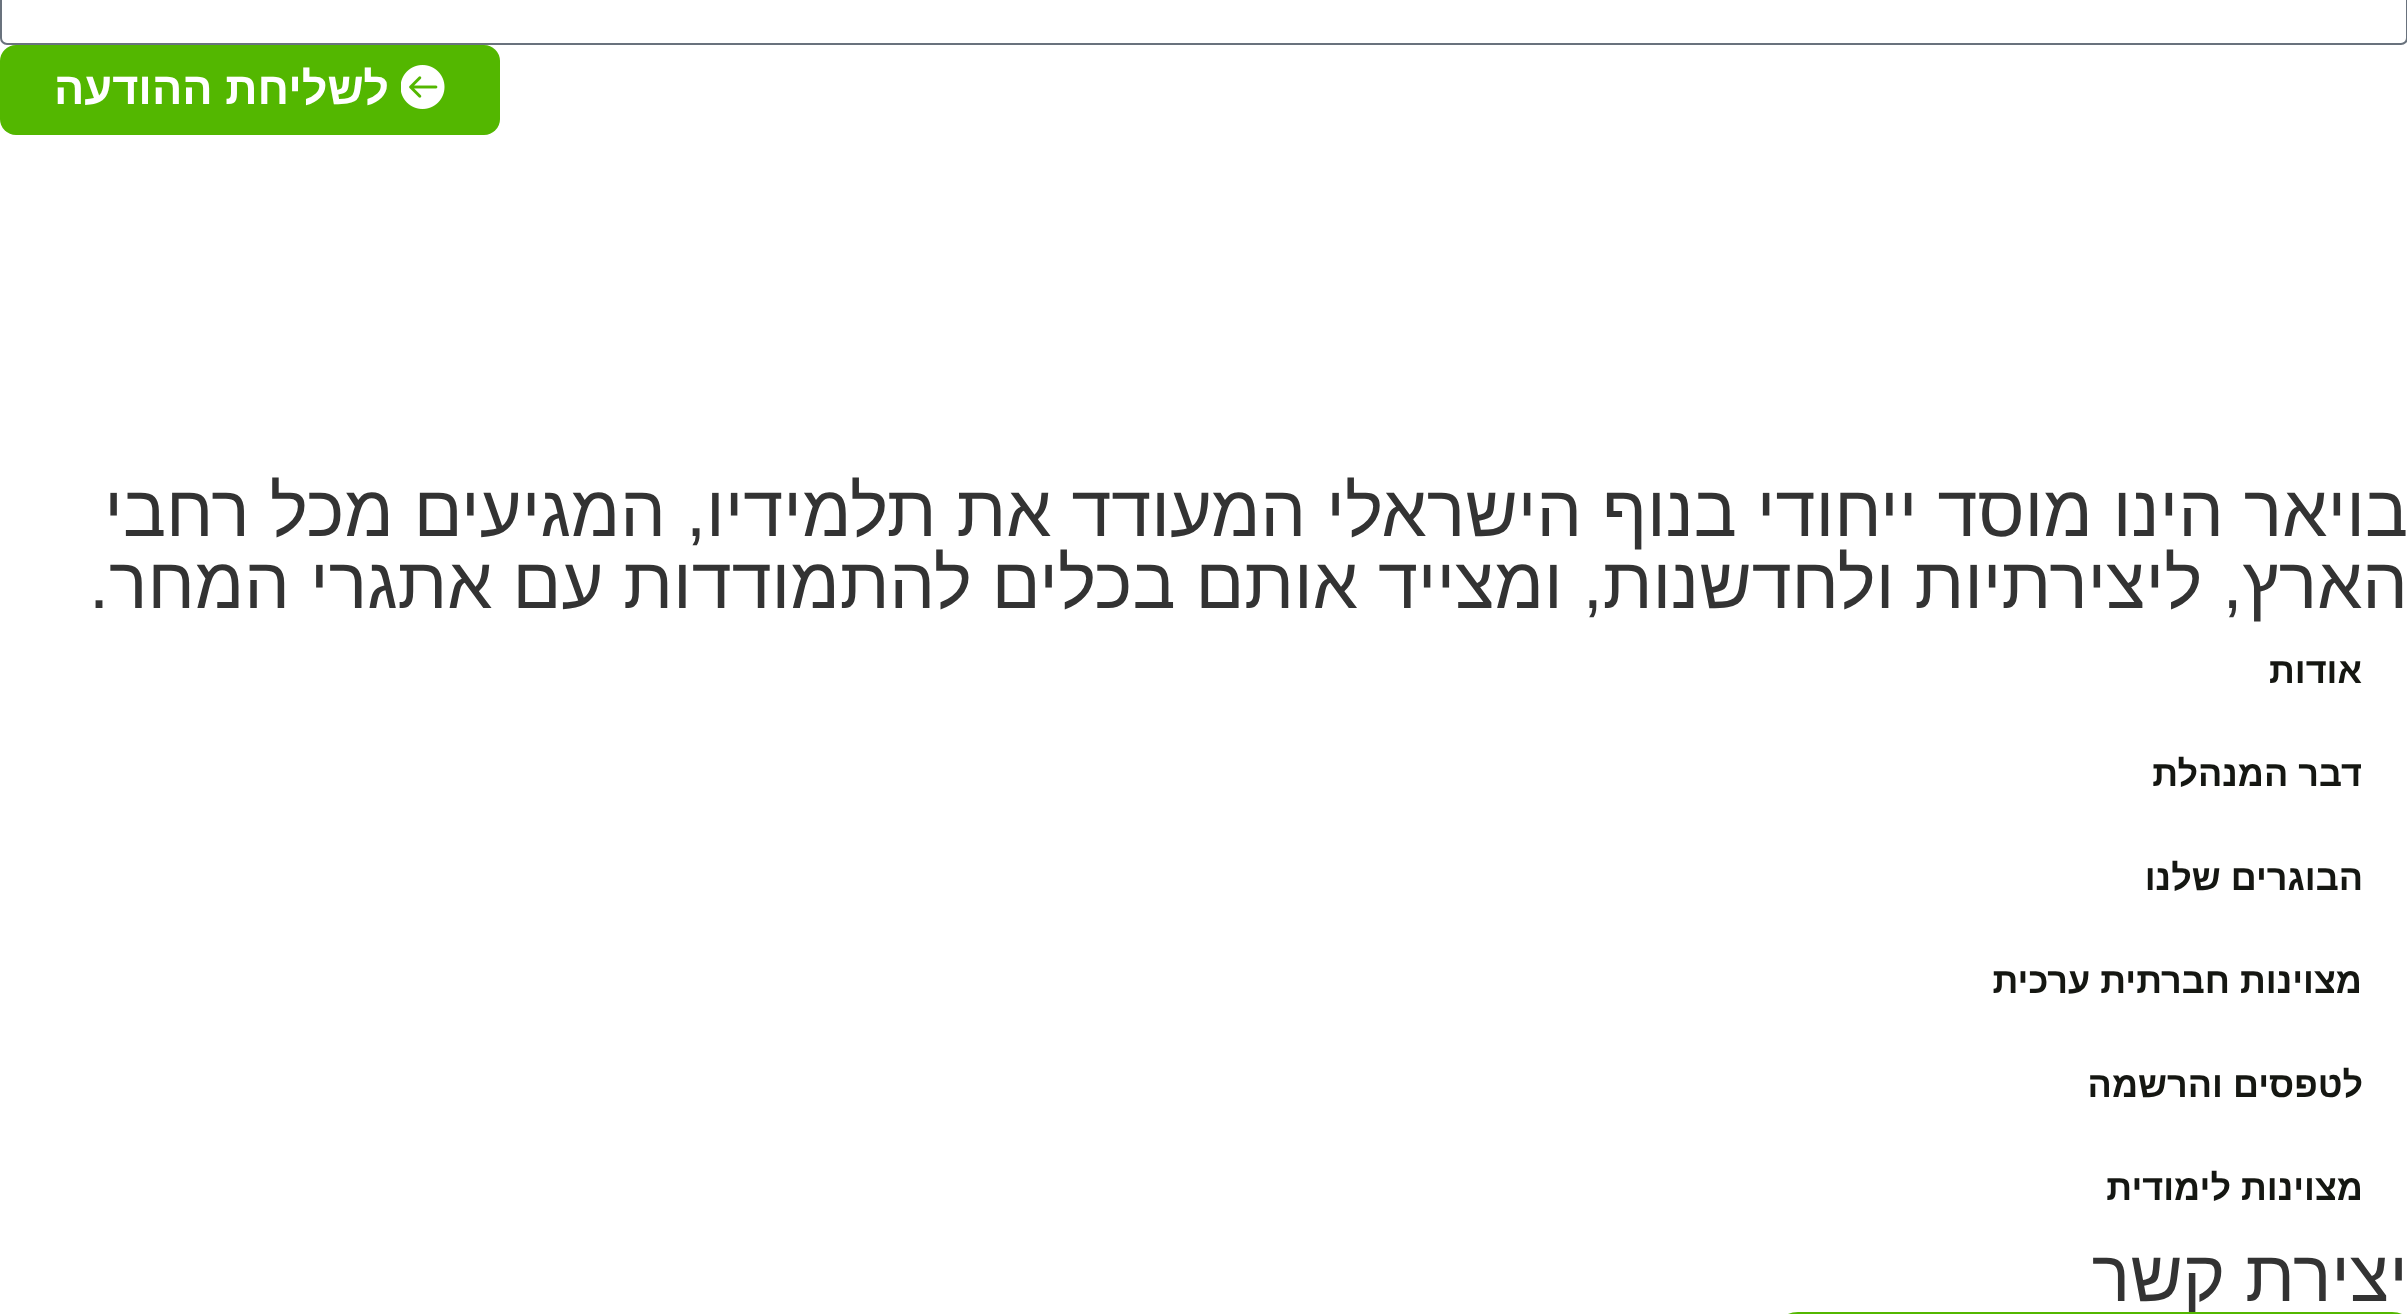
<svg xmlns="http://www.w3.org/2000/svg" width="2407" height="1314" viewBox="0 0 2407 1314">
  <rect width="100%" height="100%" fill="rgb(255,255,255)"/>
  <rect x="1" y="-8" width="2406" height="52" rx="6" fill="none" stroke="rgb(105,114,125)" stroke-width="2"/>
  <rect x="0" y="45" width="500" height="90" rx="16" fill="rgb(83,183,0)"/>
  <image x="401" y="65" width="44" height="44" href="pic1.png"/>
  <text x="389" y="104" font-family="Liberation Sans" font-size="45" font-weight="bold" direction="rtl" fill="rgb(255,255,255)">לשליחת ההודעה</text>
  <g font-family="Liberation Sans" font-size="72" direction="rtl" fill="rgb(51,51,51)">
    <text>
      <tspan x="2408" y="536">בויאר הינו מוסד ייחודי בנוף הישראלי המעודד את תלמידיו, המגיעים מכל רחבי</tspan>
      <tspan x="2408" y="608">הארץ, ליצירתיות ולחדשנות, ומצייד אותם בכלים להתמודדות עם אתגרי המחר.</tspan>
    </text>
  </g>
  <g font-family="Liberation Sans" font-size="36" font-weight="bold" direction="rtl" fill="rgb(21,23,18)">
    <text x="2362" y="683">אודות</text>
    <text x="2362" y="786">דבר המנהלת</text>
    <text x="2363" y="890">הבוגרים שלנו</text>
    <text x="2362" y="993">מצוינות חברתית ערכית</text>
    <text x="2363" y="1097">לטפסים והרשמה</text>
    <text x="2363" y="1200">מצוינות לימודית</text>
  </g>
  <text x="2408" y="1301" font-family="Liberation Sans" font-size="72" direction="rtl" fill="rgb(51,51,51)">יצירת קשר</text>
  <rect x="1782" y="1312" width="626" height="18" rx="16" fill="rgb(83,183,0)"/>
</svg>
